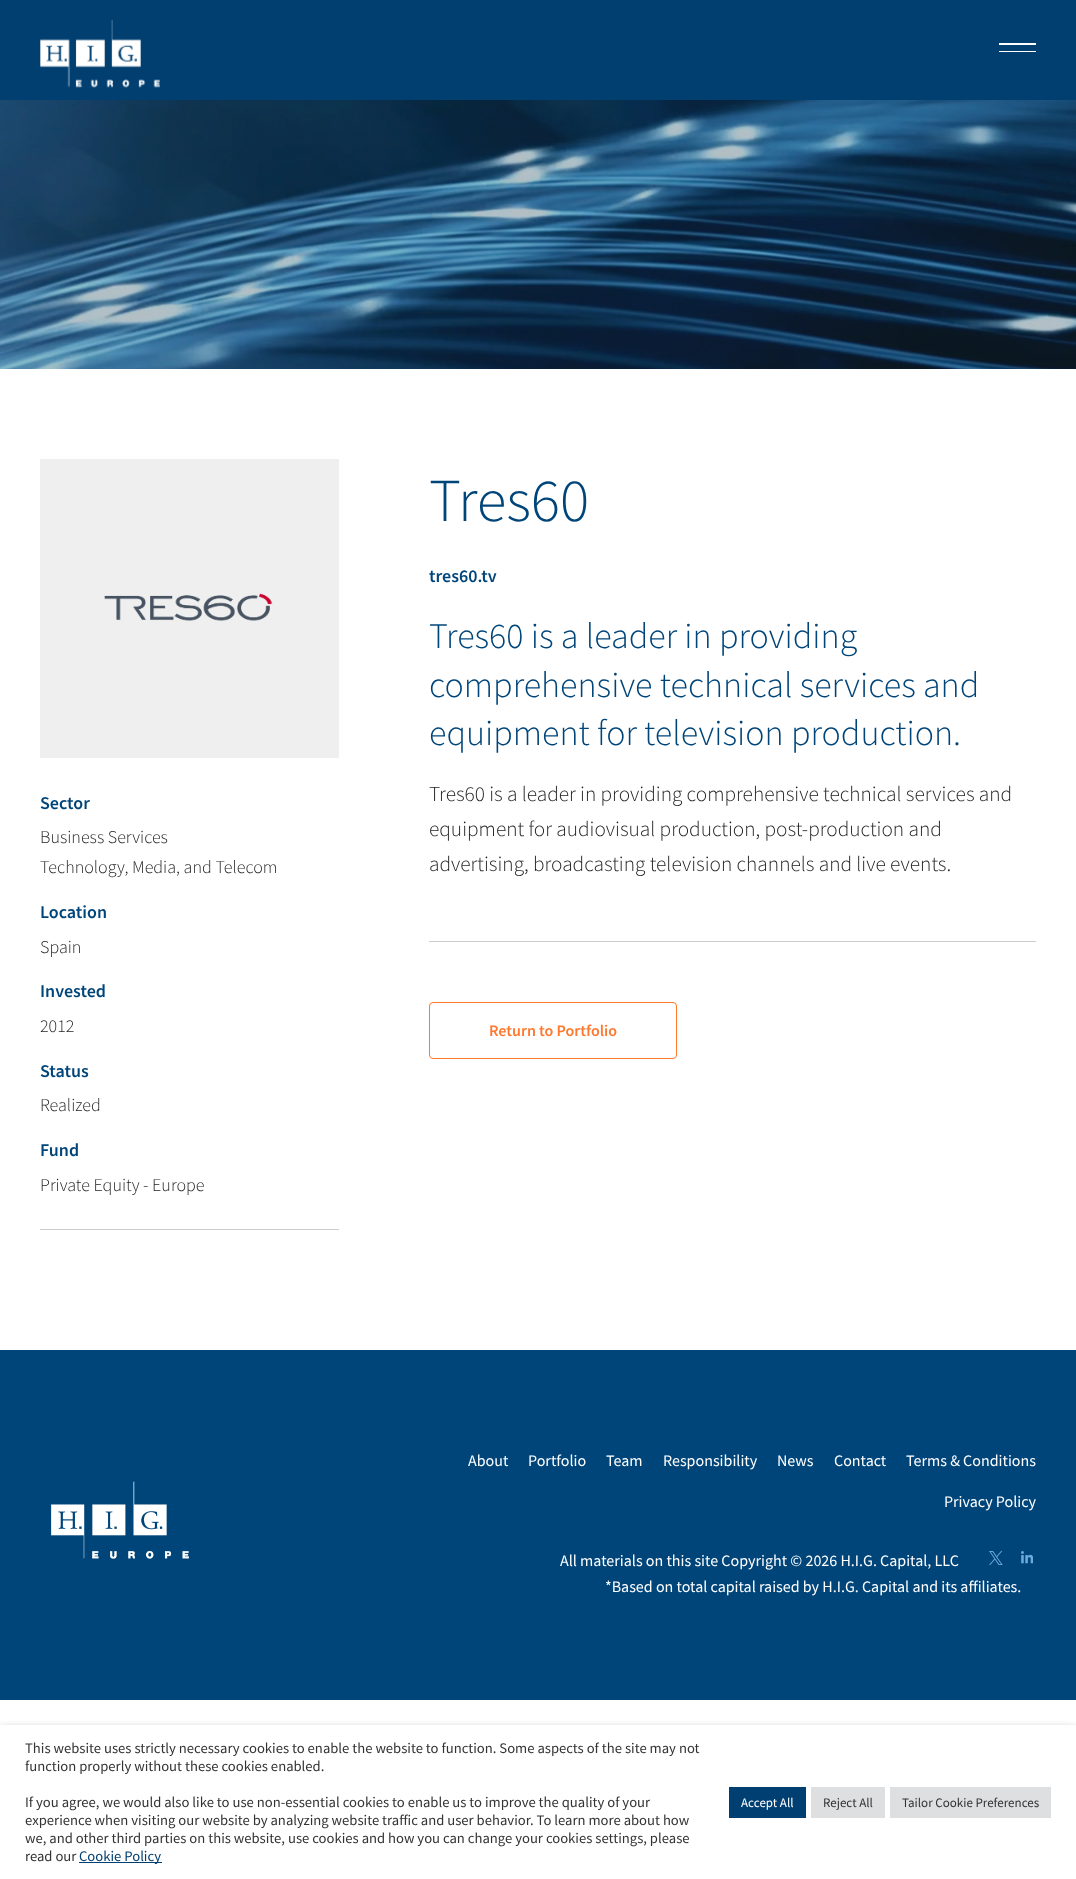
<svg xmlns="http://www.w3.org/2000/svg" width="1076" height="1879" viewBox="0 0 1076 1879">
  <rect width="100%" height="100%" fill="rgb(255,255,255)"/>
  <rect x="0" y="0" width="1076" height="100" fill="rgb(0,63,112)"/>
  <image x="40" y="20" width="120" height="68" href="pic1.png"/>
  <rect x="999" y="43" width="37" height="2" fill="rgb(255,255,255)"/>
  <rect x="999" y="51" width="37" height="1" fill="rgb(255,255,255)"/>
  <image x="0" y="100" width="1076" height="269" href="pic2.png"/>
  <rect x="40" y="459" width="299" height="299" fill="rgb(239,239,240)"/>
  <image x="104" y="593" width="169" height="28" href="pic3.png"/>
  <rect x="40" y="1229" width="299" height="1" fill="rgb(204,204,204)"/>
  <text x="40" y="809" font-family="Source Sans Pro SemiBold" font-size="18" font-weight="600" fill="rgb(0,69,122)">Sector</text>
  <g font-family="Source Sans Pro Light" font-size="18" font-weight="300" fill="rgb(30,30,30)">
    <text>
      <tspan x="40" y="843">Business Services</tspan>
      <tspan x="40" y="873">Technology, Media, and Telecom</tspan>
    </text>
  </g>
  <text x="40" y="918" font-family="Source Sans Pro SemiBold" font-size="18" font-weight="600" fill="rgb(0,69,122)">Location</text>
  <text x="40" y="953" font-family="Source Sans Pro Light" font-size="18" font-weight="300" fill="rgb(30,30,30)">Spain</text>
  <text x="40" y="997" font-family="Source Sans Pro SemiBold" font-size="18" font-weight="600" fill="rgb(0,69,122)">Invested</text>
  <text x="40" y="1032" font-family="Source Sans Pro Light" font-size="18" font-weight="300" fill="rgb(30,30,30)">2012</text>
  <text x="40" y="1077" font-family="Source Sans Pro SemiBold" font-size="18" font-weight="600" fill="rgb(0,69,122)">Status</text>
  <text x="40" y="1111" font-family="Source Sans Pro Light" font-size="18" font-weight="300" fill="rgb(30,30,30)">Realized</text>
  <text x="40" y="1156" font-family="Source Sans Pro SemiBold" font-size="18" font-weight="600" fill="rgb(0,69,122)">Fund</text>
  <text x="40" y="1191" font-family="Source Sans Pro Light" font-size="18" font-weight="300" fill="rgb(30,30,30)">Private Equity - Europe</text>
  <text x="429" y="521" font-family="Source Sans Pro Light" font-size="61" font-weight="300" fill="rgb(0,69,122)">Tres60</text>
  <text x="429" y="582" font-family="Source Sans Pro SemiBold" font-size="18" font-weight="600" fill="rgb(0,69,122)">tres60.tv</text>
  <g font-family="Source Sans Pro Light" font-size="36" font-weight="300" fill="rgb(0,69,122)">
    <text>
      <tspan x="429" y="648">Tres60 is a leader in providing</tspan>
      <tspan x="429" y="697">comprehensive technical services and</tspan>
      <tspan x="429" y="745">equipment for television production.</tspan>
    </text>
  </g>
  <g font-family="Source Sans Pro Light" font-size="21.3" font-weight="300" fill="rgb(30,30,30)">
    <text>
      <tspan x="429" y="801">Tres60 is a leader in providing comprehensive technical services and</tspan>
      <tspan x="429" y="836">equipment for audiovisual production, post-production and</tspan>
      <tspan x="429" y="871">advertising, broadcasting television channels and live events.</tspan>
    </text>
  </g>
  <rect x="429" y="941" width="607" height="1" fill="rgb(204,204,204)"/>
  <rect x="429.5" y="1002.5" width="247" height="56" rx="3.5" fill="none" stroke="rgb(254,120,46)"/>
  <text x="489" y="1036" font-family="Source Sans Pro SemiBold" font-size="16" font-weight="600" fill="rgb(254,120,46)">Return to Portfolio</text>
  <rect x="0" y="1350" width="1076" height="350" fill="rgb(0,69,122)"/>
  <image x="51" y="1481" width="138" height="78" href="pic4.png"/>
  <g font-family="Source Sans Pro" font-size="16" fill="rgb(255,255,255)">
    <text x="468" y="1466">About</text>
    <text x="528" y="1466">Portfolio</text>
    <text x="606" y="1466">Team</text>
    <text x="663" y="1466">Responsibility</text>
    <text x="777" y="1466">News</text>
    <text x="834" y="1466">Contact</text>
    <text x="906" y="1466">Terms &amp; Conditions</text>
    <text x="944" y="1507">Privacy Policy</text>
    <text x="560" y="1566">All materials on this site Copyright © 2026 H.I.G. Capital, LLC</text>
  </g>
  <image x="989" y="1551" width="14" height="14" href="pic5.png"/>
  <image x="1021" y="1551" width="12" height="13" href="pic6.png"/>
  <text x="605" y="1592" font-family="Source Sans Pro" font-size="16" fill="rgb(255,255,255)">*Based on total capital raised by H.I.G. Capital and its affiliates.</text>
  <rect x="0" y="1730" width="1076" height="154" fill="rgba(0,0,0,0.5)" filter="blur(5px)"/>
  <rect x="0" y="1725" width="1076" height="154" fill="rgb(255,255,255)"/>
  <g font-family="Source Sans Pro" font-size="14.65" fill="rgb(51,51,51)">
    <text>
      <tspan x="25" y="1753">This website uses strictly necessary cookies to enable the website to function. Some aspects of the site may not</tspan>
      <tspan x="25" y="1771">function properly without these cookies enabled.</tspan>
    </text>
    <text>
      <tspan x="25" y="1807">If you agree, we would also like to use non-essential cookies to enable us to improve the quality of your</tspan>
      <tspan x="25" y="1825">experience when visiting our website by analyzing website traffic and user behavior. To learn more about how</tspan>
      <tspan x="25" y="1843">we, and other third parties on this website, use cookies and how you can change your cookies settings, please</tspan>
      <tspan x="25" y="1861">read our</tspan>
    </text>
  </g>
  <rect x="79" y="1862" width="83" height="1" fill="rgb(0,63,113)"/>
  <text x="79" y="1861" font-family="Source Sans Pro" font-size="14.65" fill="rgb(0,63,113)">Cookie Policy</text>
  <rect x="729" y="1787" width="77" height="31" fill="rgb(0,63,113)"/>
  <text x="741" y="1807" font-family="Source Sans Pro" font-size="13" fill="rgb(255,255,255)">Accept All</text>
  <rect x="811" y="1787" width="74" height="31" fill="rgb(222,223,224)"/>
  <text x="823" y="1807" font-family="Source Sans Pro" font-size="13" fill="rgb(51,51,51)">Reject All</text>
  <rect x="890" y="1787" width="161" height="31" fill="rgb(222,223,224)"/>
  <text x="902" y="1807" font-family="Source Sans Pro" font-size="13" fill="rgb(51,51,51)">Tailor Cookie Preferences</text>
</svg>
